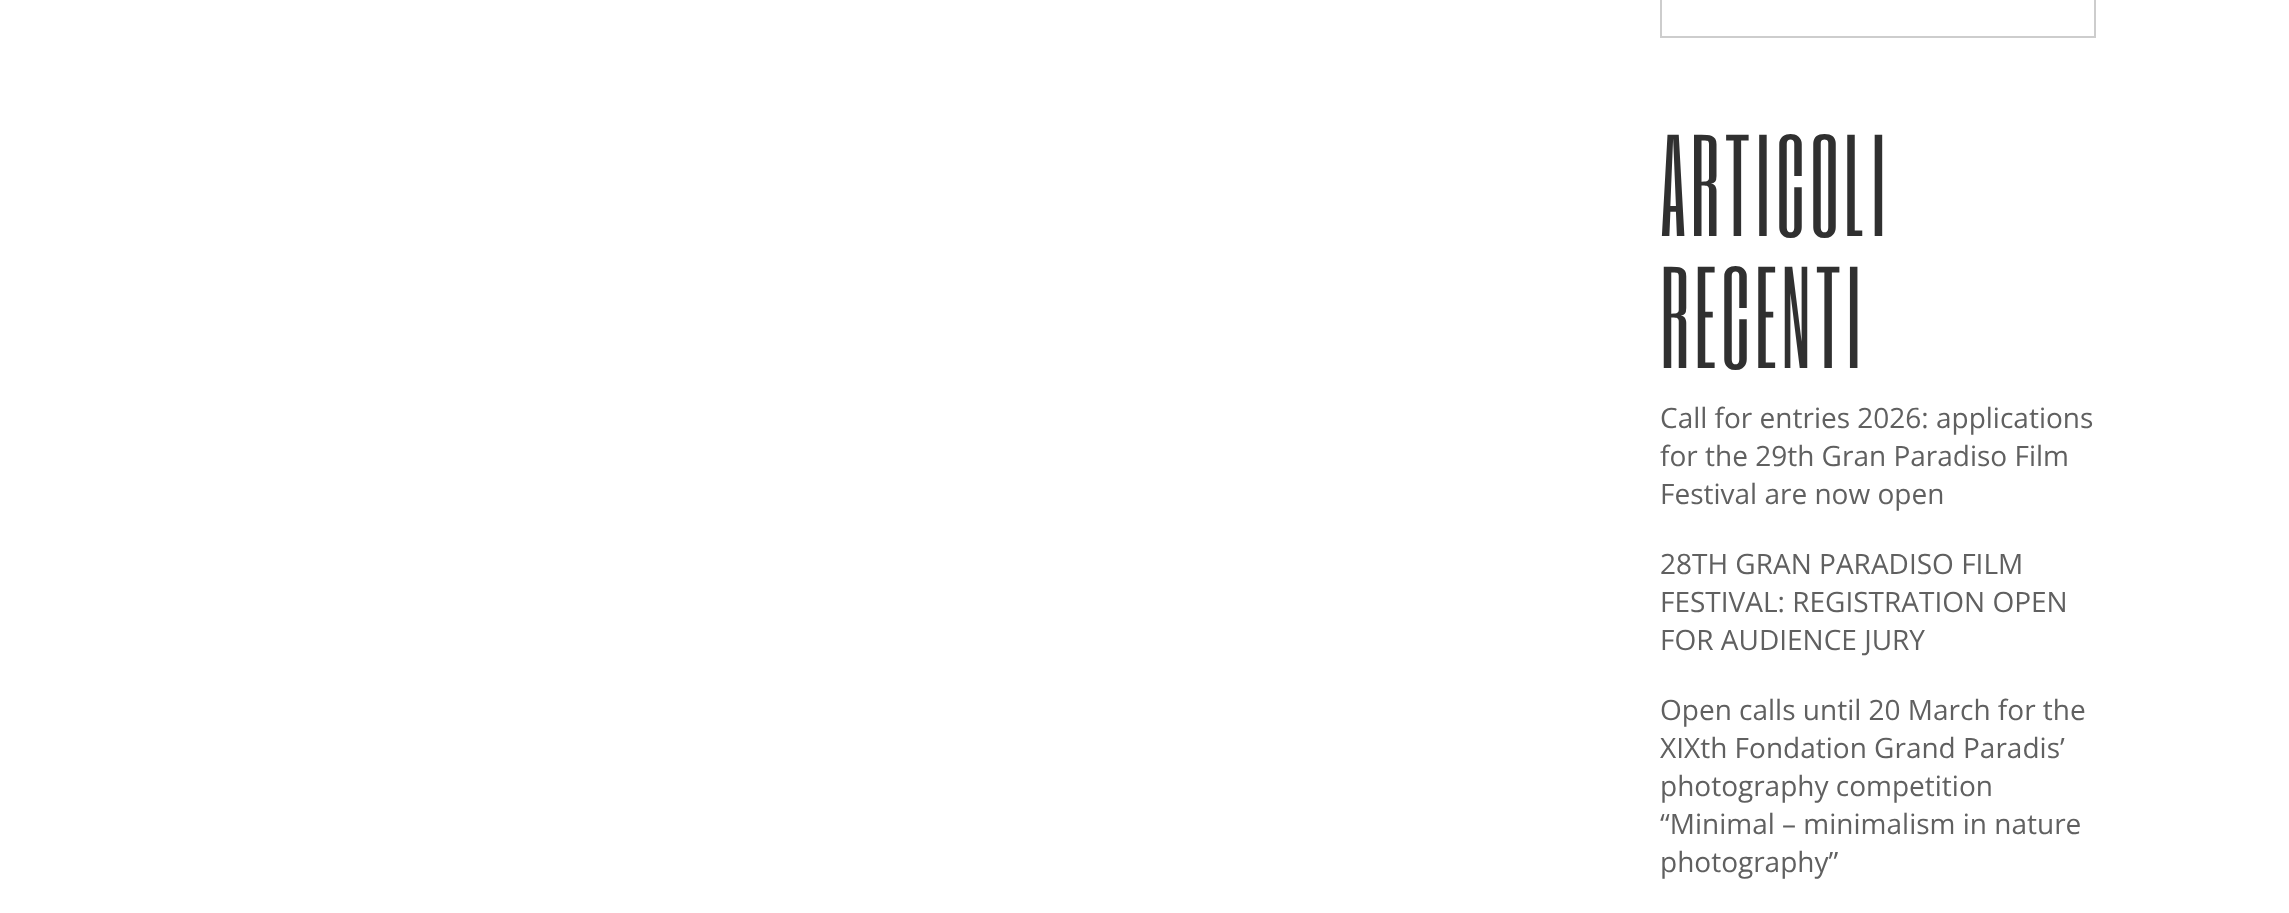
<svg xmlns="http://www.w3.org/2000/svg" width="2289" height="913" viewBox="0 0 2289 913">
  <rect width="100%" height="100%" fill="rgb(255,255,255)"/>
  <rect x="1661" y="-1" width="434" height="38" fill="none" stroke="rgb(205,205,205)" stroke-width="2"/>
  <g font-family="Six Caps" font-size="120" letter-spacing="4" fill="rgb(48,48,48)">
    <text>
      <tspan x="1660" y="236">ARTICOLI</tspan>
      <tspan x="1660" y="368">RECENTI</tspan>
    </text>
  </g>
  <g font-family="Open Sans" font-size="28" fill="rgb(96,96,96)">
    <text>
      <tspan x="1660" y="428">Call for entries 2026: applications</tspan>
      <tspan x="1660" y="466">for the 29th Gran Paradiso Film</tspan>
      <tspan x="1660" y="504">Festival are now open</tspan>
    </text>
    <text>
      <tspan x="1660" y="574">28TH GRAN PARADISO FILM</tspan>
      <tspan x="1660" y="612">FESTIVAL: REGISTRATION OPEN</tspan>
      <tspan x="1660" y="650">FOR AUDIENCE JURY</tspan>
    </text>
    <text>
      <tspan x="1660" y="720">Open calls until 20 March for the</tspan>
      <tspan x="1660" y="758">XIXth Fondation Grand Paradis’</tspan>
      <tspan x="1660" y="796">photography competition</tspan>
      <tspan x="1660" y="834">“Minimal – minimalism in nature</tspan>
      <tspan x="1660" y="872">photography”</tspan>
    </text>
  </g>
</svg>
